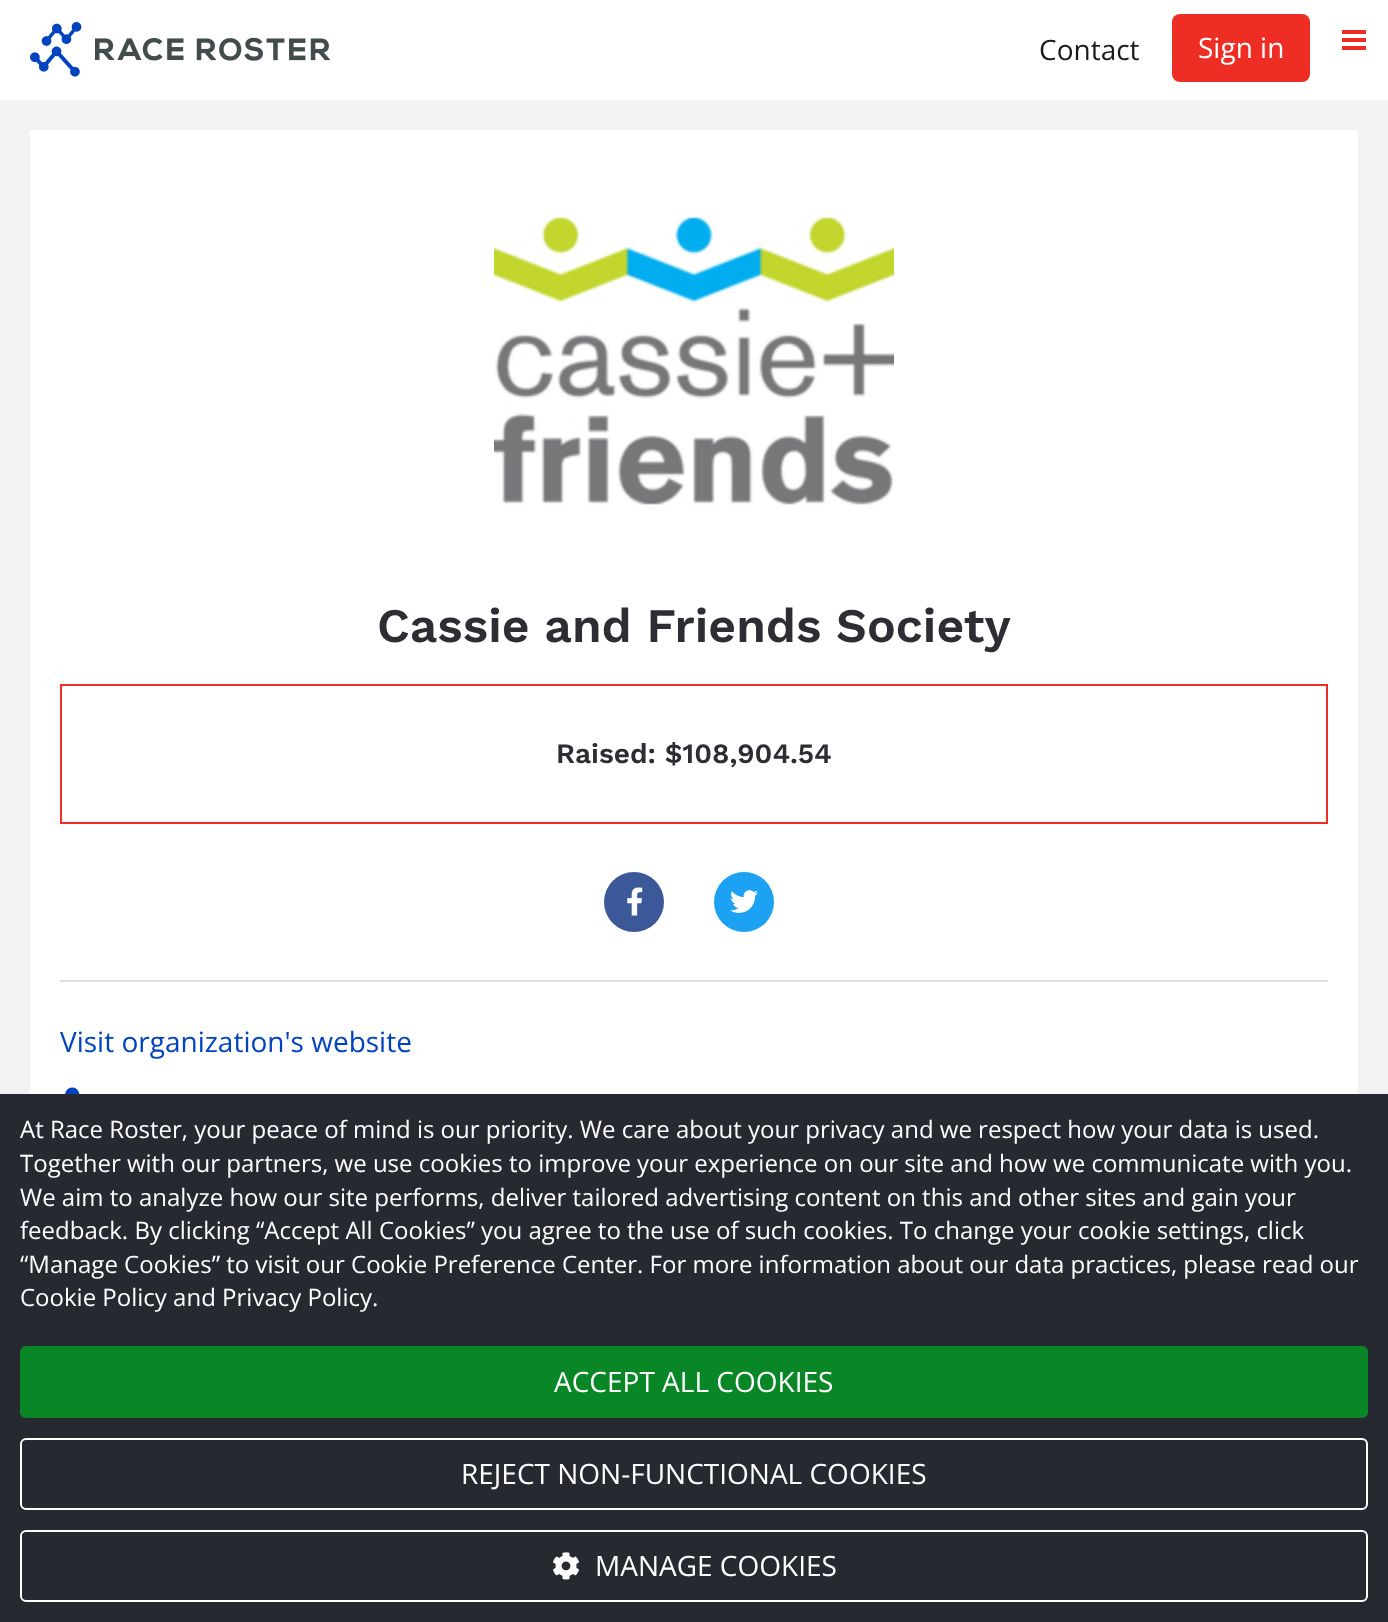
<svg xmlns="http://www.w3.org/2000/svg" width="1388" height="1622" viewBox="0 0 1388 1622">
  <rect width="100%" height="100%" fill="rgb(242,242,242)"/>
  <rect x="0" y="0" width="1388" height="100" fill="rgb(255,255,255)"/>
  <image x="30" y="22" width="300" height="55" href="pic1.png"/>
  <text x="1039" y="60" font-family="Open Sans" font-size="28" fill="rgb(26,26,26)">Contact</text>
  <rect x="1172" y="14" width="138" height="68" rx="8" fill="rgb(238,46,36)"/>
  <text x="1198" y="58" font-family="Open Sans" font-size="28" fill="rgb(255,255,255)">Sign in</text>
  <rect x="1342" y="30" width="24" height="4" fill="rgb(238,46,36)"/>
  <rect x="1342" y="38" width="24" height="4" fill="rgb(238,46,36)"/>
  <rect x="1342" y="46" width="24" height="4" fill="rgb(238,46,36)"/>
  <rect x="30" y="130" width="1328" height="964" fill="rgb(255,255,255)"/>
  <image x="494" y="217" width="400" height="288" href="pic2.png"/>
  <text x="377" y="642" font-family="Work Sans" font-size="48" font-weight="600" fill="rgb(45,45,51)">Cassie and Friends Society</text>
  <rect x="61" y="685" width="1266" height="138" fill="none" stroke="rgb(238,46,36)" stroke-width="2"/>
  <text x="556" y="763" font-family="Work Sans" font-size="28" font-weight="600" fill="rgb(45,45,51)">Raised: $108,904.54</text>
  <circle cx="634" cy="902" r="30" fill="rgb(59,89,152)"/>
  <image x="627" y="887" width="16" height="29" href="pic3.png"/>
  <circle cx="744" cy="902" r="30" fill="rgb(29,161,242)"/>
  <image x="730" y="890" width="28" height="23" href="pic4.png"/>
  <rect x="60" y="980" width="1268" height="2" fill="rgb(221,221,230)"/>
  <text x="60" y="1052" font-family="Open Sans" font-size="28" fill="rgb(0,67,191)">Visit organization's website</text>
  <image x="65" y="1087" width="15" height="7" href="pic5.png"/>
  <rect x="0" y="1094" width="1388" height="528" fill="rgb(39,41,48)"/>
  <g font-family="Open Sans" font-size="24" fill="rgb(255,255,255)">
    <text>
      <tspan x="20" y="1138">At Race Roster, your peace of mind is our priority. We care about your privacy and we respect how your data is used.</tspan>
      <tspan x="20" y="1172">Together with our partners, we use cookies to improve your experience on our site and how we communicate with you.</tspan>
      <tspan x="20" y="1206">We aim to analyze how our site performs, deliver tailored advertising content on this and other sites and gain your</tspan>
      <tspan x="20" y="1239">feedback. By clicking “Accept All Cookies” you agree to the use of such cookies. To change your cookie settings, click</tspan>
      <tspan x="20" y="1273">“Manage Cookies” to visit our Cookie Preference Center. For more information about our data practices, please read our</tspan>
      <tspan x="20" y="1306">Cookie Policy and Privacy Policy.</tspan>
    </text>
  </g>
  <rect x="20" y="1346" width="1348" height="72" rx="6" fill="rgb(9,135,38)"/>
  <text x="554" y="1392" font-family="Open Sans" font-size="28" fill="rgb(255,255,255)">ACCEPT ALL COOKIES</text>
  <rect x="21" y="1439" width="1346" height="70" rx="5" fill="none" stroke="rgb(255,255,255)" stroke-width="2"/>
  <text x="461" y="1484" font-family="Open Sans" font-size="28" fill="rgb(255,255,255)">REJECT NON-FUNCTIONAL COOKIES</text>
  <rect x="21" y="1531" width="1346" height="70" rx="5" fill="none" stroke="rgb(255,255,255)" stroke-width="2"/>
  <image x="553" y="1552" width="26" height="28" href="pic6.png"/>
  <text x="595" y="1576" font-family="Open Sans" font-size="28" fill="rgb(255,255,255)">MANAGE COOKIES</text>
</svg>
